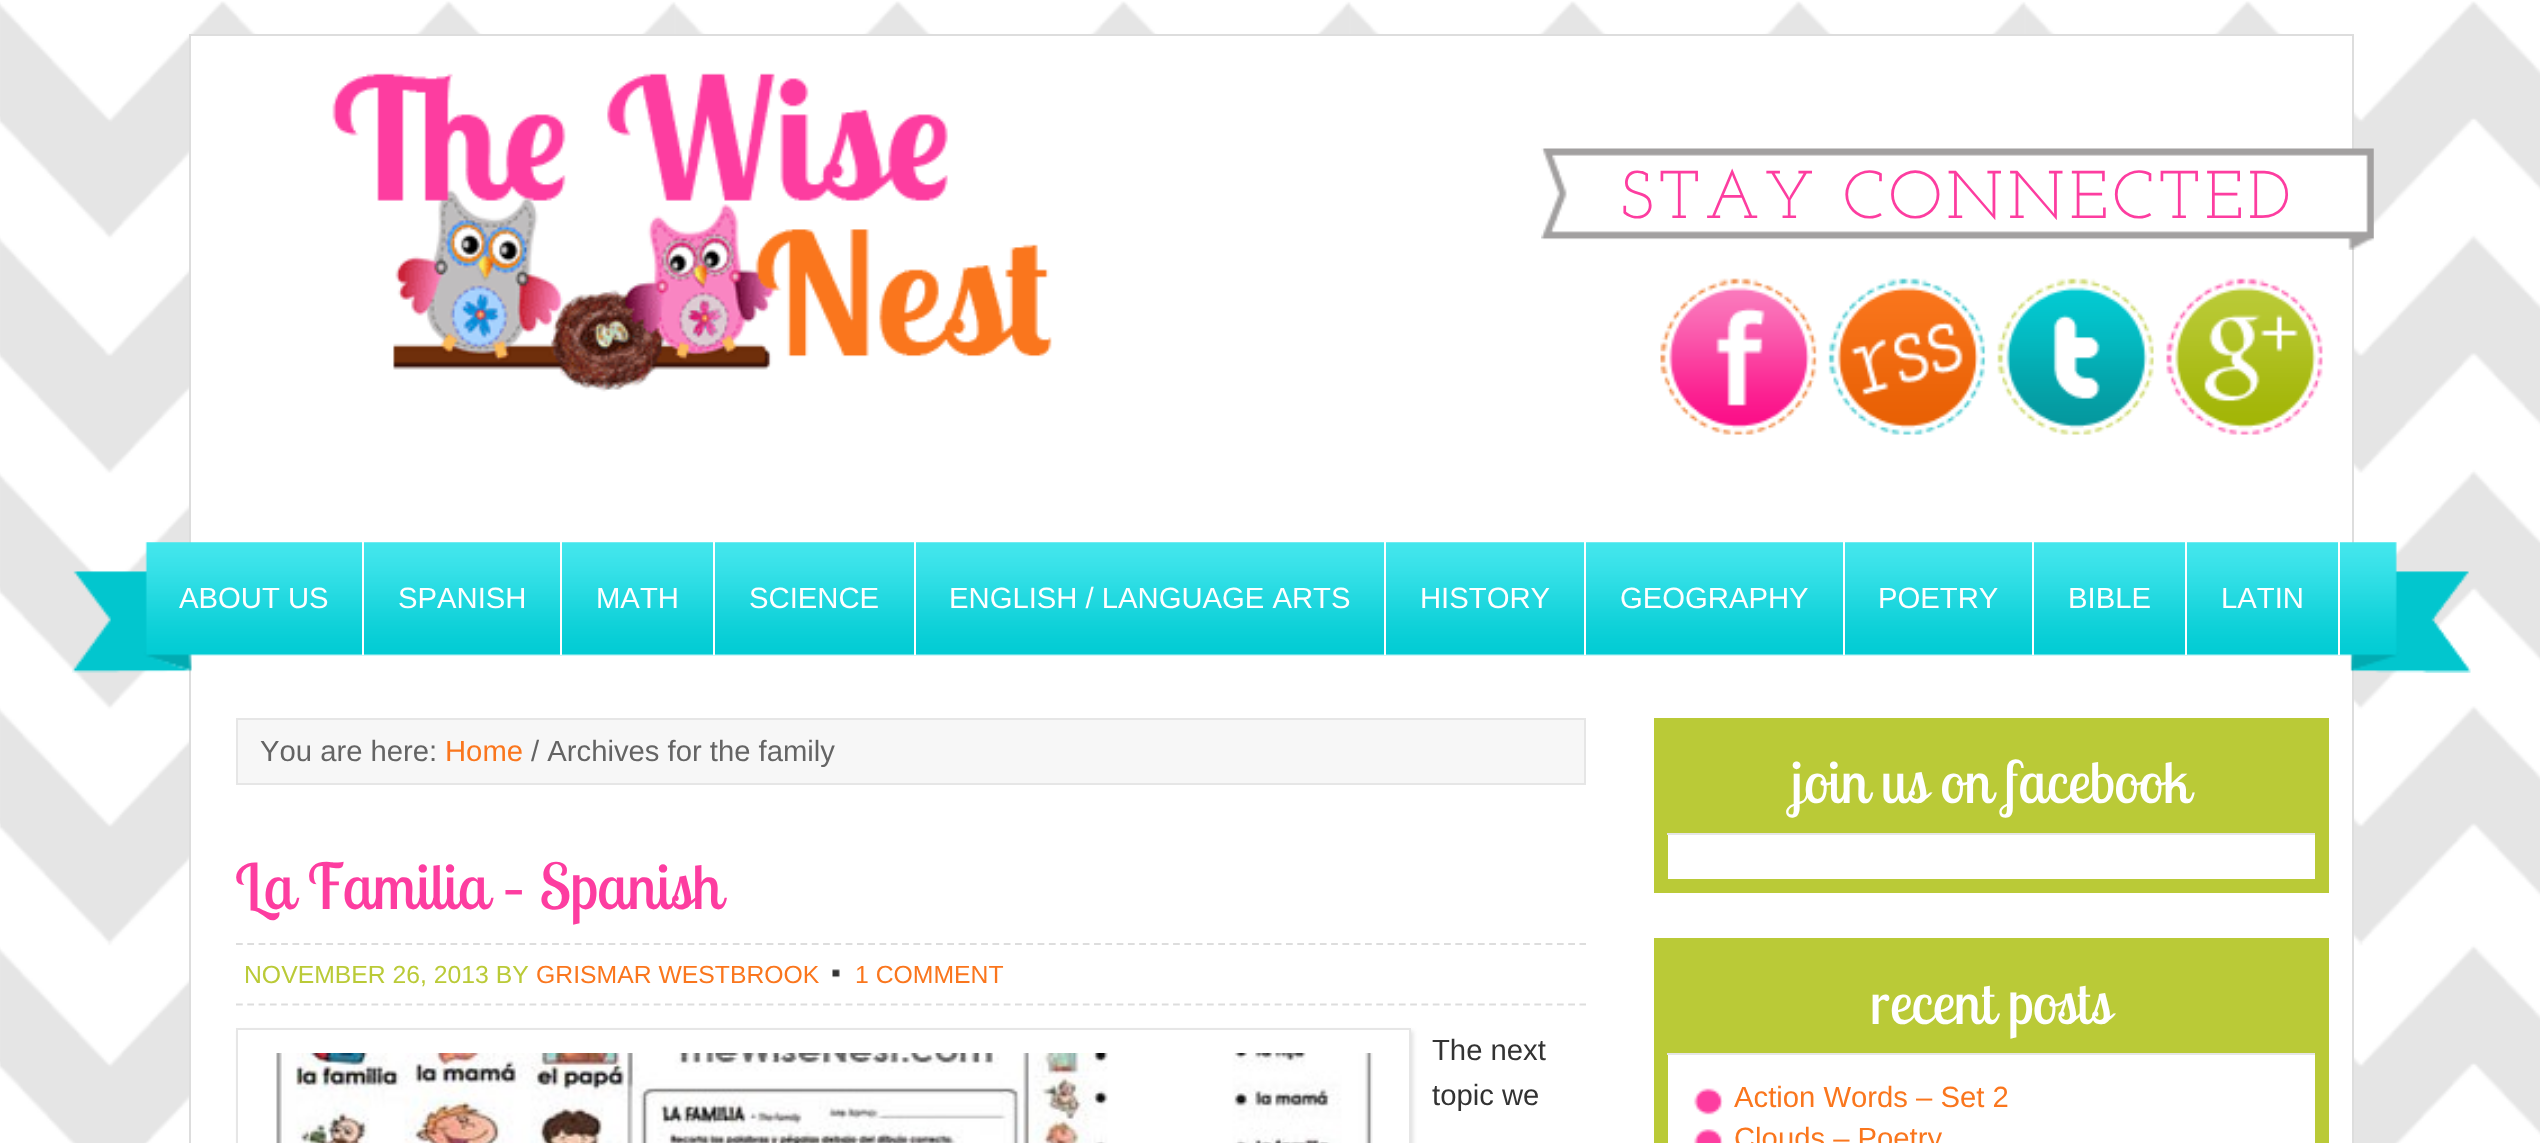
<svg xmlns="http://www.w3.org/2000/svg" width="2540" height="1143" viewBox="0 0 2540 1143">
  <style>*{font-kerning:none!important;font-variant-ligatures:none!important}</style>
  <rect width="100%" height="100%" fill="rgb(255,255,255)"/>
  <image x="0" y="1" width="2540" height="1142" href="pic1.png"/>
  <rect x="190" y="35" width="2163" height="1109" fill="rgb(255,255,255)" stroke="rgb(221,221,221)" stroke-width="2"/>
  <image x="332" y="73" width="720" height="319" href="pic2.png"/>
  <image x="1541" y="148" width="833" height="102" href="pic3.png"/>
  <text x="1620" y="218" font-family="Josefin Slab" font-size="67.5" font-weight="100" letter-spacing="4.5" fill="rgb(253,61,160)">STAY</text>
  <text x="1843" y="218" font-family="Josefin Slab" font-size="67.5" font-weight="100" letter-spacing="4.5" fill="rgb(253,61,160)">CONNECTED</text>
  <image x="1660" y="278" width="157" height="157" href="pic4.png"/>
  <image x="1828" y="278" width="158" height="157" href="pic5.png"/>
  <image x="1997" y="278" width="157" height="157" href="pic6.png"/>
  <image x="2166" y="278" width="157" height="157" href="pic7.png"/>
  <image x="72" y="542" width="2399" height="131" href="pic8.png"/>
  <rect x="362" y="542" width="2" height="113" fill="rgb(255,255,255)"/>
  <text x="179" y="608" font-family="Liberation Sans" font-size="29.25" fill="rgb(255,255,255)">ABOUT US</text>
  <rect x="560" y="542" width="2" height="113" fill="rgb(255,255,255)"/>
  <text x="398" y="608" font-family="Liberation Sans" font-size="29.25" fill="rgb(255,255,255)">SPANISH</text>
  <rect x="713" y="542" width="2" height="113" fill="rgb(255,255,255)"/>
  <text x="596" y="608" font-family="Liberation Sans" font-size="29.25" fill="rgb(255,255,255)">MATH</text>
  <rect x="914" y="542" width="2" height="113" fill="rgb(255,255,255)"/>
  <text x="749" y="608" font-family="Liberation Sans" font-size="29.25" fill="rgb(255,255,255)">SCIENCE</text>
  <rect x="1384" y="542" width="2" height="113" fill="rgb(255,255,255)"/>
  <text x="949" y="608" font-family="Liberation Sans" font-size="29.25" fill="rgb(255,255,255)">ENGLISH / LANGUAGE ARTS</text>
  <rect x="1584" y="542" width="2" height="113" fill="rgb(255,255,255)"/>
  <text x="1420" y="608" font-family="Liberation Sans" font-size="29.25" fill="rgb(255,255,255)">HISTORY</text>
  <rect x="1843" y="542" width="2" height="113" fill="rgb(255,255,255)"/>
  <text x="1620" y="608" font-family="Liberation Sans" font-size="29.25" fill="rgb(255,255,255)">GEOGRAPHY</text>
  <rect x="2032" y="542" width="2" height="113" fill="rgb(255,255,255)"/>
  <text x="1878" y="608" font-family="Liberation Sans" font-size="29.25" fill="rgb(255,255,255)">POETRY</text>
  <rect x="2185" y="542" width="2" height="113" fill="rgb(255,255,255)"/>
  <text x="2068" y="608" font-family="Liberation Sans" font-size="29.25" fill="rgb(255,255,255)">BIBLE</text>
  <rect x="2338" y="542" width="2" height="113" fill="rgb(255,255,255)"/>
  <text x="2221" y="608" font-family="Liberation Sans" font-size="29.25" fill="rgb(255,255,255)">LATIN</text>
  <rect x="237" y="719" width="1348" height="65" fill="rgb(247,247,247)" stroke="rgb(230,230,230)" stroke-width="2"/>
  <text x="260" y="761" font-family="Liberation Sans" font-size="29.25" fill="rgb(100,100,100)">You are here:</text>
  <text x="445" y="761" font-family="Liberation Sans" font-size="29.25" fill="rgb(250,118,29)">Home</text>
  <text x="531" y="761" font-family="Liberation Sans" font-size="29.25" fill="rgb(100,100,100)">/ Archives for the family</text>
  <text x="235" y="909" font-family="Lobster Two" font-size="63" fill="rgb(253,61,160)">La Familia – Spanish</text>
  <path d="M236 944H1586" fill="none" stroke="rgb(221,221,221)" stroke-width="2.2" stroke-dasharray="6.75 4.54"/>
  <path d="M236 1004.5H1586" fill="none" stroke="rgb(221,221,221)" stroke-width="2.2" stroke-dasharray="6.75 4.54"/>
  <text x="244" y="983" font-family="Liberation Sans" font-size="24.75" fill="rgb(186,202,55)">NOVEMBER 26, 2013 BY</text>
  <text x="536" y="983" font-family="Liberation Sans" font-size="24.75" fill="rgb(250,118,29)">GRISMAR WESTBROOK</text>
  <image x="832" y="969" width="8" height="9" href="pic9.png"/>
  <text x="855" y="983" font-family="Liberation Sans" font-size="24.75" fill="rgb(250,118,29)">1 COMMENT</text>
  <rect x="239" y="1031" width="1174" height="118" fill="rgb(224,224,224)" filter="blur(2px)"/>
  <rect x="237" y="1029" width="1173" height="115" fill="rgb(255,255,255)" stroke="rgb(230,230,230)" stroke-width="2"/>
  <image x="276" y="1053" width="1097" height="90" href="pic10.png"/>
  <g font-family="Liberation Sans" font-size="29.25" fill="rgb(51,51,51)">
    <text>
      <tspan x="1432" y="1060">The next</tspan>
      <tspan x="1432" y="1105">topic we</tspan>
    </text>
  </g>
  <rect x="1661" y="725" width="661" height="161" fill="none" stroke="rgb(186,202,55)" stroke-width="14"/>
  <rect x="1668" y="732" width="647" height="101" fill="rgb(186,202,55)"/>
  <rect x="1667" y="833" width="648" height="2" fill="rgb(230,230,230)"/>
  <text x="1791" y="803" font-family="Lobster Two" font-size="58.5" fill="rgb(255,255,255)">join us on facebook</text>
  <rect x="1661" y="945" width="661" height="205" fill="none" stroke="rgb(186,202,55)" stroke-width="14"/>
  <rect x="1668" y="952" width="647" height="101" fill="rgb(186,202,55)"/>
  <rect x="1667" y="1053" width="648" height="2" fill="rgb(230,230,230)"/>
  <text x="1870" y="1024" font-family="Lobster Two" font-size="58.5" fill="rgb(255,255,255)">recent posts</text>
  <image x="1693" y="1088" width="31" height="27" href="pic11.png"/>
  <text x="1734" y="1107" font-family="Liberation Sans" font-size="29.25" fill="rgb(250,118,29)">Action Words – Set 2</text>
  <image x="1693" y="1129" width="31" height="14" href="pic12.png"/>
  <text x="1734" y="1148" font-family="Liberation Sans" font-size="29.25" fill="rgb(250,118,29)">Clouds – Poetry</text>
</svg>
